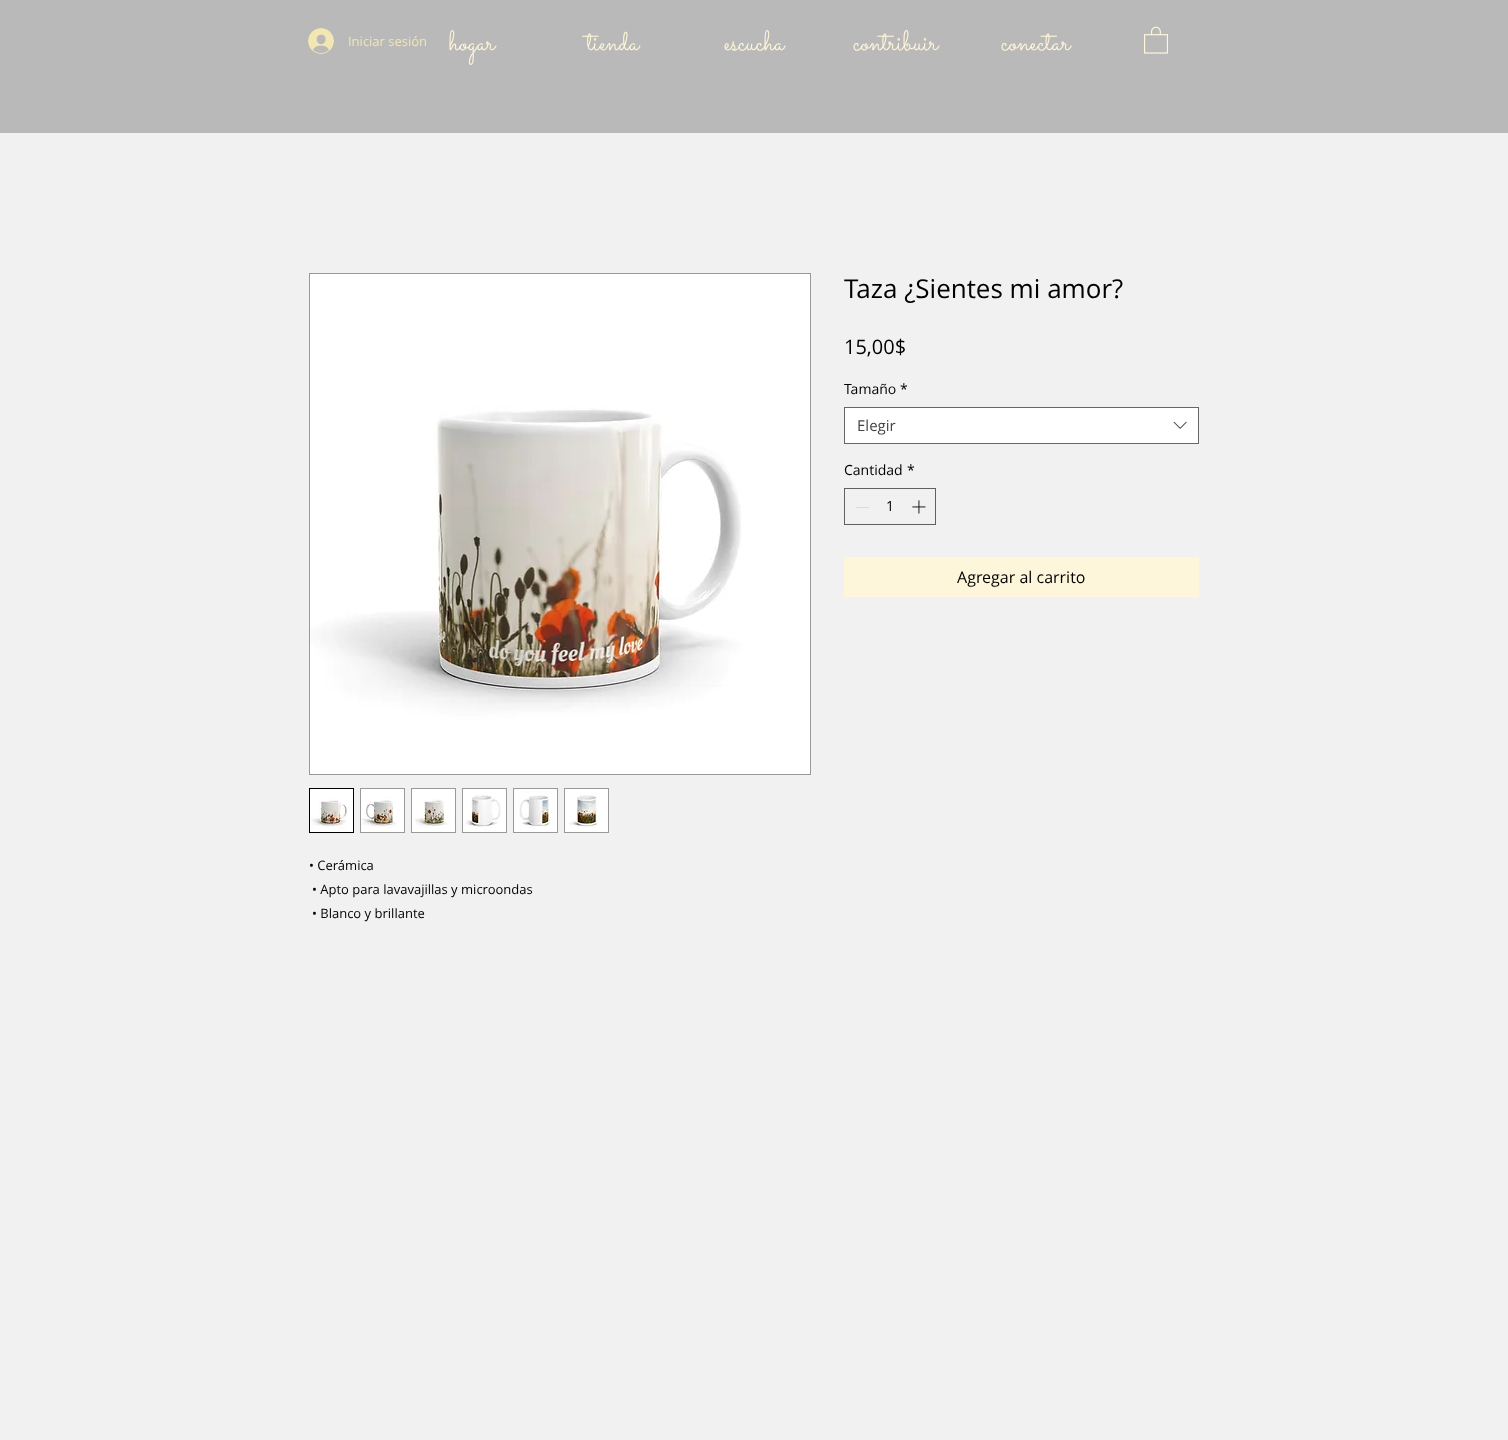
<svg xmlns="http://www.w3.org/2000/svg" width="1508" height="1440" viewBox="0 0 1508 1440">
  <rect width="100%" height="100%" fill="rgb(241,241,241)"/>
  <rect x="0" y="0" width="1508" height="133" fill="rgb(185,185,185)"/>
  <image x="308" y="28" width="26" height="26" href="pic1.png"/>
  <text x="348" y="46" font-family="Open Sans" font-size="13" fill="rgb(242,230,179)">Iniciar sesión</text>
  <g font-family="Sacramento" font-size="28" fill="rgb(255,246,217)">
    <text x="449" y="50">hogar</text>
    <text x="587" y="50">tienda</text>
    <text x="724" y="50">escucha</text>
    <text x="853" y="50">contribuir</text>
    <text x="1001" y="50">conectar</text>
  </g>
  <image x="1144" y="26" width="24" height="28" href="pic2.png"/>
  <text x="844" y="298" font-family="Open Sans" font-size="26" fill="rgb(0,0,0)">Taza ¿Sientes mi amor?</text>
  <text x="844" y="354" font-family="Open Sans" font-size="20" fill="rgb(0,0,0)">15,00$</text>
  <g font-family="Open Sans" font-size="14" fill="rgb(0,0,0)">
    <text x="844" y="394">Tamaño</text>
    <text x="900" y="394">*</text>
  </g>
  <rect x="844.5" y="407.5" width="354" height="36" fill="rgb(255,255,255)" stroke="rgb(102,102,102)"/>
  <text x="857" y="431" font-family="Open Sans" font-size="15" fill="rgb(68,68,68)">Elegir</text>
  <image x="1173" y="421" width="14" height="8" href="pic3.png"/>
  <g font-family="Open Sans" font-size="14" fill="rgb(0,0,0)">
    <text x="844" y="475">Cantidad</text>
    <text x="907" y="475">*</text>
  </g>
  <rect x="844.5" y="488.5" width="91" height="36" fill="none" stroke="rgb(96,96,96)"/>
  <rect x="856" y="507" width="13" height="1" fill="rgb(220,220,220)"/>
  <text x="886" y="511" font-family="Open Sans" font-size="14" fill="rgb(0,0,0)">1</text>
  <image x="912" y="500" width="14" height="14" href="pic4.png"/>
  <rect x="844" y="557" width="355" height="40" fill="rgb(254,246,219)"/>
  <text x="957" y="583" font-family="Open Sans" font-size="16" fill="rgb(0,0,0)">Agregar al carrito</text>
  <rect x="309.5" y="273.5" width="501" height="501" fill="none" stroke="rgb(153,153,153)"/>
  <image x="310" y="274" width="500" height="500" href="pic5.png"/>
  <rect x="309.5" y="788.5" width="44" height="44" fill="none" stroke="rgb(0,0,0)"/>
  <image x="310" y="789" width="43" height="43" href="pic6.png"/>
  <rect x="360" y="788" width="45" height="45" fill="rgb(153,153,153)"/>
  <image x="361" y="789" width="43" height="43" href="pic7.png"/>
  <rect x="411" y="788" width="45" height="45" fill="rgb(153,153,153)"/>
  <image x="412" y="789" width="43" height="43" href="pic8.png"/>
  <rect x="462" y="788" width="45" height="45" fill="rgb(153,153,153)"/>
  <image x="463" y="789" width="43" height="43" href="pic9.png"/>
  <rect x="513" y="788" width="45" height="45" fill="rgb(153,153,153)"/>
  <image x="514" y="789" width="43" height="43" href="pic10.png"/>
  <rect x="564" y="788" width="45" height="45" fill="rgb(153,153,153)"/>
  <image x="565" y="789" width="43" height="43" href="pic11.png"/>
  <g font-family="Open Sans" font-size="13" fill="rgb(0,0,0)">
    <text x="309" y="870">• Cerámica</text>
    <text>
      <tspan x="312" y="894">• Apto para lavavajillas y microondas</tspan>
      <tspan x="312" y="918">• Blanco y brillante</tspan>
    </text>
  </g>
</svg>
